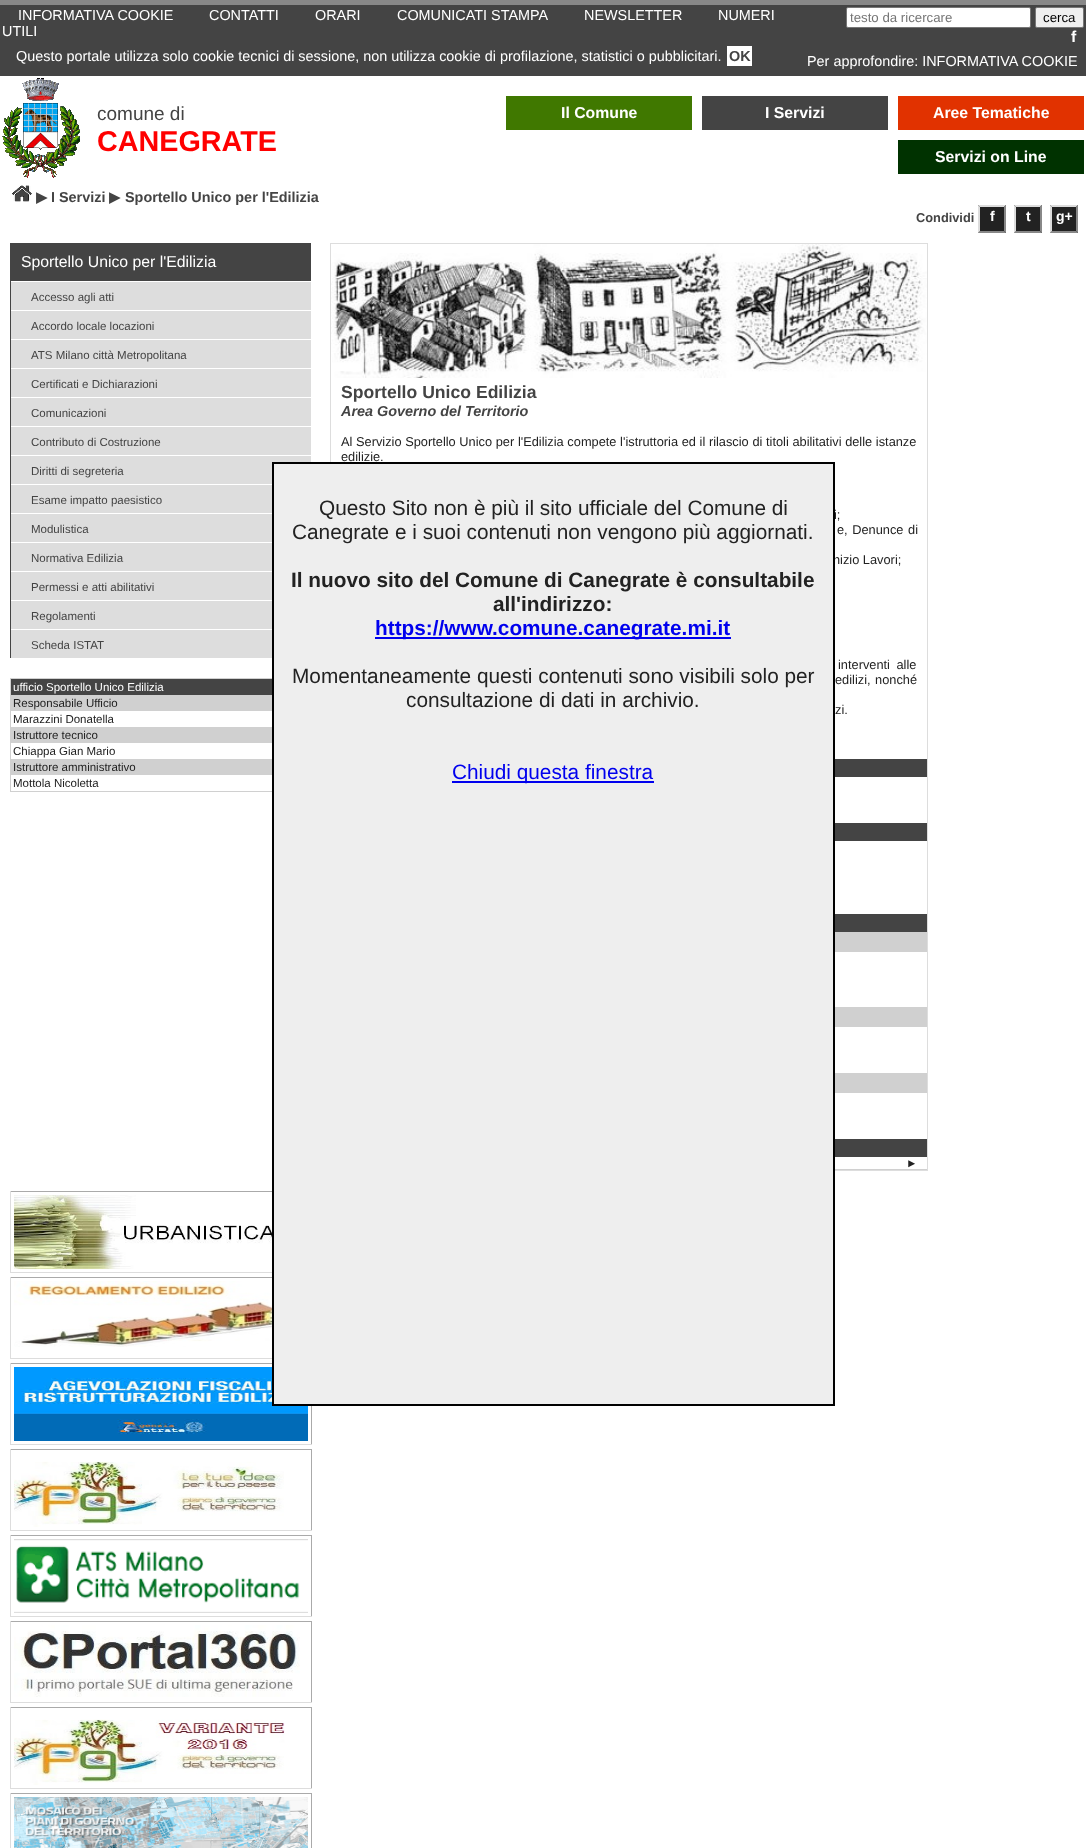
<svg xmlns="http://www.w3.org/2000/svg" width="1086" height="1848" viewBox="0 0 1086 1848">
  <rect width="100%" height="100%" fill="rgb(255,255,255)"/>
  <rect x="0" y="5" width="1086" height="71" fill="rgb(68,68,68)"/>
  <rect x="0" y="0" width="1086" height="5" fill="rgb(136,136,136)"/>
  <g font-family="Liberation Sans" font-size="14.4" fill="rgb(255,255,255)">
    <text x="18" y="20">INFORMATIVA COOKIE</text>
    <text x="209" y="20">CONTATTI</text>
    <text x="315" y="20">ORARI</text>
    <text x="397" y="20">COMUNICATI STAMPA</text>
    <text x="584" y="20">NEWSLETTER</text>
    <text x="718" y="20">NUMERI</text>
    <text x="2" y="36">UTILI</text>
  </g>
  <rect x="846.5" y="7.5" width="184" height="20" rx="1.5" fill="rgb(255,255,255)" stroke="rgb(118,118,118)"/>
  <text x="850" y="22" font-family="Liberation Sans" font-size="13.25" fill="rgb(117,117,117)">testo da ricercare</text>
  <rect x="1035.5" y="7.5" width="48" height="20" rx="1.5" fill="rgb(239,239,239)" stroke="rgb(118,118,118)"/>
  <text x="1043" y="22" font-family="Liberation Sans" font-size="13.25" fill="rgb(0,0,0)">cerca</text>
  <text x="1071" y="42" font-family="Liberation Sans" font-size="15.8" font-weight="bold" fill="rgb(255,255,255)">f</text>
  <text x="16" y="61" font-family="Liberation Sans" font-size="14.4" fill="rgb(255,255,255)">Questo portale utilizza solo cookie tecnici di sessione, non utilizza cookie di profilazione, statistici o pubblicitari.</text>
  <rect x="727" y="46" width="25" height="20" fill="rgb(255,255,255)"/>
  <text x="729" y="61" font-family="Liberation Sans" font-size="14.4" font-weight="bold" fill="rgb(68,68,68)">OK</text>
  <text x="807" y="66" font-family="Liberation Sans" font-size="14.4" fill="rgb(255,255,255)">Per approfondire: INFORMATIVA COOKIE</text>
  <image x="2" y="78" width="78" height="100" href="pic1.png"/>
  <text x="97" y="120" font-family="Liberation Sans" font-size="19" fill="rgb(68,68,68)">comune di</text>
  <text x="97" y="151" font-family="Liberation Sans" font-size="28.75" font-weight="bold" fill="rgb(255,0,0)">CANEGRATE</text>
  <rect x="506" y="96" width="186" height="34" fill="rgb(64,120,0)"/>
  <text x="561" y="118" font-family="Liberation Sans" font-size="15.8" font-weight="bold" fill="rgb(255,255,255)">Il Comune</text>
  <rect x="702" y="96" width="186" height="34" fill="rgb(68,68,68)"/>
  <text x="765" y="118" font-family="Liberation Sans" font-size="15.8" font-weight="bold" fill="rgb(255,255,255)">I Servizi</text>
  <rect x="898" y="96" width="186" height="34" fill="rgb(225,50,0)"/>
  <text x="933" y="118" font-family="Liberation Sans" font-size="15.8" font-weight="bold" fill="rgb(255,255,255)">Aree Tematiche</text>
  <rect x="898" y="140" width="186" height="34" fill="rgb(0,50,0)"/>
  <text x="935" y="162" font-family="Liberation Sans" font-size="15.8" font-weight="bold" fill="rgb(255,255,255)">Servizi on Line</text>
  <image x="12" y="185" width="20" height="17" href="pic2.png"/>
  <text x="36" y="202" font-family="DejaVu Sans" font-size="14.4" font-weight="bold" fill="rgb(68,68,68)">▶</text>
  <text x="51" y="202" font-family="Liberation Sans" font-size="14.4" font-weight="bold" fill="rgb(68,68,68)">I Servizi</text>
  <text x="109" y="202" font-family="DejaVu Sans" font-size="14.4" font-weight="bold" fill="rgb(68,68,68)">▶</text>
  <text x="125" y="202" font-family="Liberation Sans" font-size="14.4" font-weight="bold" fill="rgb(68,68,68)">Sportello Unico per l'Edilizia</text>
  <text x="916" y="222" font-family="Liberation Sans" font-size="12.8" font-weight="bold" fill="rgb(68,68,68)">Condividi</text>
  <rect x="978" y="205" width="28" height="28" fill="rgb(34,34,34)"/>
  <path d="M978 205H1006L1004 207H980Z" fill="rgb(221,221,221)"/>
  <path d="M1006 205V233L1004 231V207Z" fill="rgb(136,136,136)"/>
  <path d="M1006 233H978L980 231H1004Z" fill="rgb(136,136,136)"/>
  <path d="M978 233V205L980 207V231Z" fill="rgb(221,221,221)"/>
  <text x="990" y="221" font-family="Liberation Sans" font-size="14" font-weight="bold" fill="rgb(255,255,255)">f</text>
  <rect x="1014" y="205" width="28" height="28" fill="rgb(34,34,34)"/>
  <path d="M1014 205H1042L1040 207H1016Z" fill="rgb(221,221,221)"/>
  <path d="M1042 205V233L1040 231V207Z" fill="rgb(136,136,136)"/>
  <path d="M1042 233H1014L1016 231H1040Z" fill="rgb(136,136,136)"/>
  <path d="M1014 233V205L1016 207V231Z" fill="rgb(221,221,221)"/>
  <text x="1026" y="221" font-family="Liberation Sans" font-size="14" font-weight="bold" fill="rgb(255,255,255)">t</text>
  <rect x="1050" y="205" width="28" height="28" fill="rgb(34,34,34)"/>
  <path d="M1050 205H1078L1076 207H1052Z" fill="rgb(221,221,221)"/>
  <path d="M1078 205V233L1076 231V207Z" fill="rgb(136,136,136)"/>
  <path d="M1078 233H1050L1052 231H1076Z" fill="rgb(136,136,136)"/>
  <path d="M1050 233V205L1052 207V231Z" fill="rgb(221,221,221)"/>
  <text x="1056" y="221" font-family="Liberation Sans" font-size="14" font-weight="bold" fill="rgb(255,255,255)">g+</text>
  <rect x="11" y="243" width="300" height="38" fill="rgb(68,68,68)"/>
  <rect x="10" y="243" width="1" height="415" fill="rgb(68,68,68)"/>
  <text x="21" y="267" font-family="Liberation Sans" font-size="15.8" fill="rgb(255,255,255)">Sportello Unico per l'Edilizia</text>
  <rect x="11" y="282" width="300" height="28" fill="rgb(221,221,221)"/>
  <text x="31" y="301" font-family="Liberation Sans" font-size="11.5" fill="rgb(68,68,68)">Accesso agli atti</text>
  <rect x="11" y="311" width="300" height="28" fill="rgb(221,221,221)"/>
  <text x="31" y="330" font-family="Liberation Sans" font-size="11.5" fill="rgb(68,68,68)">Accordo locale locazioni</text>
  <rect x="11" y="340" width="300" height="28" fill="rgb(221,221,221)"/>
  <text x="31" y="359" font-family="Liberation Sans" font-size="11.5" fill="rgb(68,68,68)">ATS Milano città Metropolitana</text>
  <rect x="11" y="369" width="300" height="28" fill="rgb(221,221,221)"/>
  <text x="31" y="388" font-family="Liberation Sans" font-size="11.5" fill="rgb(68,68,68)">Certificati e Dichiarazioni</text>
  <rect x="11" y="398" width="300" height="28" fill="rgb(221,221,221)"/>
  <text x="31" y="417" font-family="Liberation Sans" font-size="11.5" fill="rgb(68,68,68)">Comunicazioni</text>
  <rect x="11" y="427" width="300" height="28" fill="rgb(221,221,221)"/>
  <text x="31" y="446" font-family="Liberation Sans" font-size="11.5" fill="rgb(68,68,68)">Contributo di Costruzione</text>
  <rect x="11" y="456" width="300" height="28" fill="rgb(221,221,221)"/>
  <text x="31" y="475" font-family="Liberation Sans" font-size="11.5" fill="rgb(68,68,68)">Diritti di segreteria</text>
  <rect x="11" y="485" width="261" height="28" fill="rgb(221,221,221)"/>
  <text x="31" y="504" font-family="Liberation Sans" font-size="11.5" fill="rgb(68,68,68)">Esame impatto paesistico</text>
  <rect x="11" y="514" width="261" height="28" fill="rgb(221,221,221)"/>
  <text x="31" y="533" font-family="Liberation Sans" font-size="11.5" fill="rgb(68,68,68)">Modulistica</text>
  <rect x="11" y="543" width="261" height="28" fill="rgb(221,221,221)"/>
  <text x="31" y="562" font-family="Liberation Sans" font-size="11.5" fill="rgb(68,68,68)">Normativa Edilizia</text>
  <rect x="11" y="572" width="261" height="28" fill="rgb(221,221,221)"/>
  <text x="31" y="591" font-family="Liberation Sans" font-size="11.5" fill="rgb(68,68,68)">Permessi e atti abilitativi</text>
  <rect x="11" y="601" width="261" height="28" fill="rgb(221,221,221)"/>
  <text x="31" y="620" font-family="Liberation Sans" font-size="11.5" fill="rgb(68,68,68)">Regolamenti</text>
  <rect x="11" y="630" width="261" height="28" fill="rgb(221,221,221)"/>
  <text x="31" y="649" font-family="Liberation Sans" font-size="11.5" fill="rgb(68,68,68)">Scheda ISTAT</text>
  <rect x="10.5" y="678.5" width="301" height="113" fill="none" stroke="rgb(208,208,208)"/>
  <rect x="11" y="679" width="261" height="16" fill="rgb(68,68,68)"/>
  <text x="13" y="691" font-family="Liberation Sans" font-size="11.5" fill="rgb(255,255,255)">ufficio Sportello Unico Edilizia</text>
  <rect x="11" y="695" width="261" height="16" fill="rgb(208,208,208)"/>
  <g font-family="Liberation Sans" font-size="11.5" fill="rgb(34,34,34)">
    <text>
      <tspan x="13" y="707">Responsabile Ufficio</tspan>
      <tspan x="13" y="723">Marazzini Donatella</tspan>
    </text>
  </g>
  <rect x="11" y="727" width="261" height="16" fill="rgb(208,208,208)"/>
  <g font-family="Liberation Sans" font-size="11.5" fill="rgb(34,34,34)">
    <text>
      <tspan x="13" y="739">Istruttore tecnico</tspan>
      <tspan x="13" y="755">Chiappa Gian Mario</tspan>
    </text>
  </g>
  <rect x="11" y="759" width="261" height="16" fill="rgb(208,208,208)"/>
  <g font-family="Liberation Sans" font-size="11.5" fill="rgb(34,34,34)">
    <text>
      <tspan x="13" y="771">Istruttore amministrativo</tspan>
      <tspan x="13" y="787">Mottola Nicoletta</tspan>
    </text>
  </g>
  <rect x="330.5" y="243.5" width="597" height="927" fill="none" stroke="rgb(221,221,221)"/>
  <image x="331" y="244" width="596" height="134" href="pic3.png"/>
  <text x="341" y="398" font-family="Liberation Sans" font-size="17.6" font-weight="bold" fill="rgb(68,68,68)">Sportello Unico Edilizia</text>
  <text x="341" y="416" font-family="Liberation Sans" font-size="14.4" font-weight="bold" font-style="italic" fill="rgb(68,68,68)">Area Governo del Territorio</text>
  <g font-family="Liberation Sans" font-size="12.8" fill="rgb(34,34,34)">
    <text>
      <tspan x="341" y="446" word-spacing="0.1">Al Servizio Sportello Unico per l'Edilizia compete l'istruttoria ed il rilascio di titoli abilitativi delle istanze</tspan>
      <tspan x="341" y="461">edilizie.</tspan>
    </text>
    <text x="834" y="519">i;</text>
    <text x="837" y="534" word-spacing="1">e, Denunce di</text>
    <text x="833" y="564">nizio Lavori;</text>
    <text x="838" y="669" word-spacing="3">interventi alle</text>
    <text x="835" y="684" word-spacing="1">edilizi, nonché</text>
    <text x="835" y="714">zi.</text>
  </g>
  <rect x="835" y="759" width="92" height="18" fill="rgb(68,68,68)"/>
  <rect x="835" y="823" width="92" height="18" fill="rgb(68,68,68)"/>
  <rect x="835" y="914" width="92" height="18" fill="rgb(68,68,68)"/>
  <rect x="835" y="932" width="92" height="20" fill="rgb(208,208,208)"/>
  <rect x="835" y="1007" width="92" height="20" fill="rgb(208,208,208)"/>
  <rect x="835" y="1073" width="92" height="20" fill="rgb(208,208,208)"/>
  <rect x="835" y="1139" width="92" height="18" fill="rgb(68,68,68)"/>
  <rect x="835" y="1169" width="92" height="1" fill="rgb(208,208,208)"/>
  <text x="906" y="1167" font-family="Liberation Sans" font-size="11.5" font-weight="bold" fill="rgb(34,34,34)">►</text>
  <rect x="10" y="1191" width="262" height="1" fill="rgb(170,170,170)"/>
  <rect x="10" y="1272" width="262" height="1" fill="rgb(221,221,221)"/>
  <rect x="10" y="1191" width="1" height="82" fill="rgb(221,221,221)"/>
  <image x="14" y="1195" width="258" height="74" href="pic4.png"/>
  <rect x="10" y="1277" width="262" height="1" fill="rgb(170,170,170)"/>
  <rect x="10" y="1358" width="262" height="1" fill="rgb(221,221,221)"/>
  <rect x="10" y="1277" width="1" height="82" fill="rgb(221,221,221)"/>
  <image x="14" y="1281" width="258" height="66" href="pic5.png"/>
  <rect x="10" y="1363" width="262" height="1" fill="rgb(170,170,170)"/>
  <rect x="311" y="1406" width="1" height="39" fill="rgb(170,170,170)"/>
  <rect x="10" y="1444" width="302" height="1" fill="rgb(221,221,221)"/>
  <rect x="10" y="1363" width="1" height="82" fill="rgb(221,221,221)"/>
  <image x="14" y="1367" width="294" height="74" href="pic6.png"/>
  <rect x="10" y="1449" width="302" height="1" fill="rgb(170,170,170)"/>
  <rect x="311" y="1449" width="1" height="82" fill="rgb(170,170,170)"/>
  <rect x="10" y="1530" width="302" height="1" fill="rgb(221,221,221)"/>
  <rect x="10" y="1449" width="1" height="82" fill="rgb(221,221,221)"/>
  <image x="14" y="1461" width="270" height="66" href="pic7.png"/>
  <rect x="10" y="1535" width="302" height="1" fill="rgb(170,170,170)"/>
  <rect x="311" y="1535" width="1" height="82" fill="rgb(170,170,170)"/>
  <rect x="10" y="1616" width="302" height="1" fill="rgb(221,221,221)"/>
  <rect x="10" y="1535" width="1" height="82" fill="rgb(221,221,221)"/>
  <image x="14" y="1539" width="294" height="74" href="pic8.png"/>
  <rect x="10" y="1621" width="302" height="1" fill="rgb(170,170,170)"/>
  <rect x="311" y="1621" width="1" height="82" fill="rgb(170,170,170)"/>
  <rect x="10" y="1702" width="302" height="1" fill="rgb(221,221,221)"/>
  <rect x="10" y="1621" width="1" height="82" fill="rgb(221,221,221)"/>
  <image x="14" y="1625" width="286" height="72" href="pic9.png"/>
  <rect x="10" y="1707" width="302" height="1" fill="rgb(170,170,170)"/>
  <rect x="311" y="1707" width="1" height="82" fill="rgb(170,170,170)"/>
  <rect x="10" y="1788" width="302" height="1" fill="rgb(221,221,221)"/>
  <rect x="10" y="1707" width="1" height="82" fill="rgb(221,221,221)"/>
  <image x="14" y="1719" width="271" height="66" href="pic10.png"/>
  <rect x="10" y="1793" width="302" height="1" fill="rgb(170,170,170)"/>
  <rect x="311" y="1793" width="1" height="55" fill="rgb(170,170,170)"/>
  <rect x="10" y="1793" width="1" height="55" fill="rgb(221,221,221)"/>
  <image x="14" y="1797" width="294" height="51" href="pic11.png"/>
  <rect x="273" y="463" width="561" height="942" fill="rgb(238,238,238)" stroke="rgb(0,0,0)" stroke-width="2"/>
  <g font-family="Liberation Sans" font-size="20.8" fill="rgb(34,34,34)">
    <text x="319" y="515">Questo Sito non è più il sito ufficiale del Comune di</text>
    <text x="292" y="539">Canegrate e i suoi contenuti non vengono più aggiornati.</text>
  </g>
  <g font-family="Liberation Sans" font-size="20.8" font-weight="bold" fill="rgb(34,34,34)">
    <text x="291" y="587">Il nuovo sito del Comune di Canegrate è consultabile</text>
    <text x="493" y="611">all'indirizzo:</text>
  </g>
  <rect x="375" y="637" width="356" height="2" fill="rgb(0,0,238)"/>
  <text x="375" y="635" font-family="Liberation Sans" font-size="20.8" font-weight="bold" fill="rgb(0,0,238)">https://www.comune.canegrate.mi.it</text>
  <g font-family="Liberation Sans" font-size="20.8" fill="rgb(34,34,34)">
    <text x="292" y="683">Momentaneamente questi contenuti sono visibili solo per</text>
    <text x="406" y="707">consultazione di dati in archivio.</text>
  </g>
  <rect x="452" y="781" width="202" height="2" fill="rgb(0,0,238)"/>
  <text x="452" y="779" font-family="Liberation Sans" font-size="20.8" fill="rgb(0,0,238)">Chiudi questa finestra</text>
</svg>
